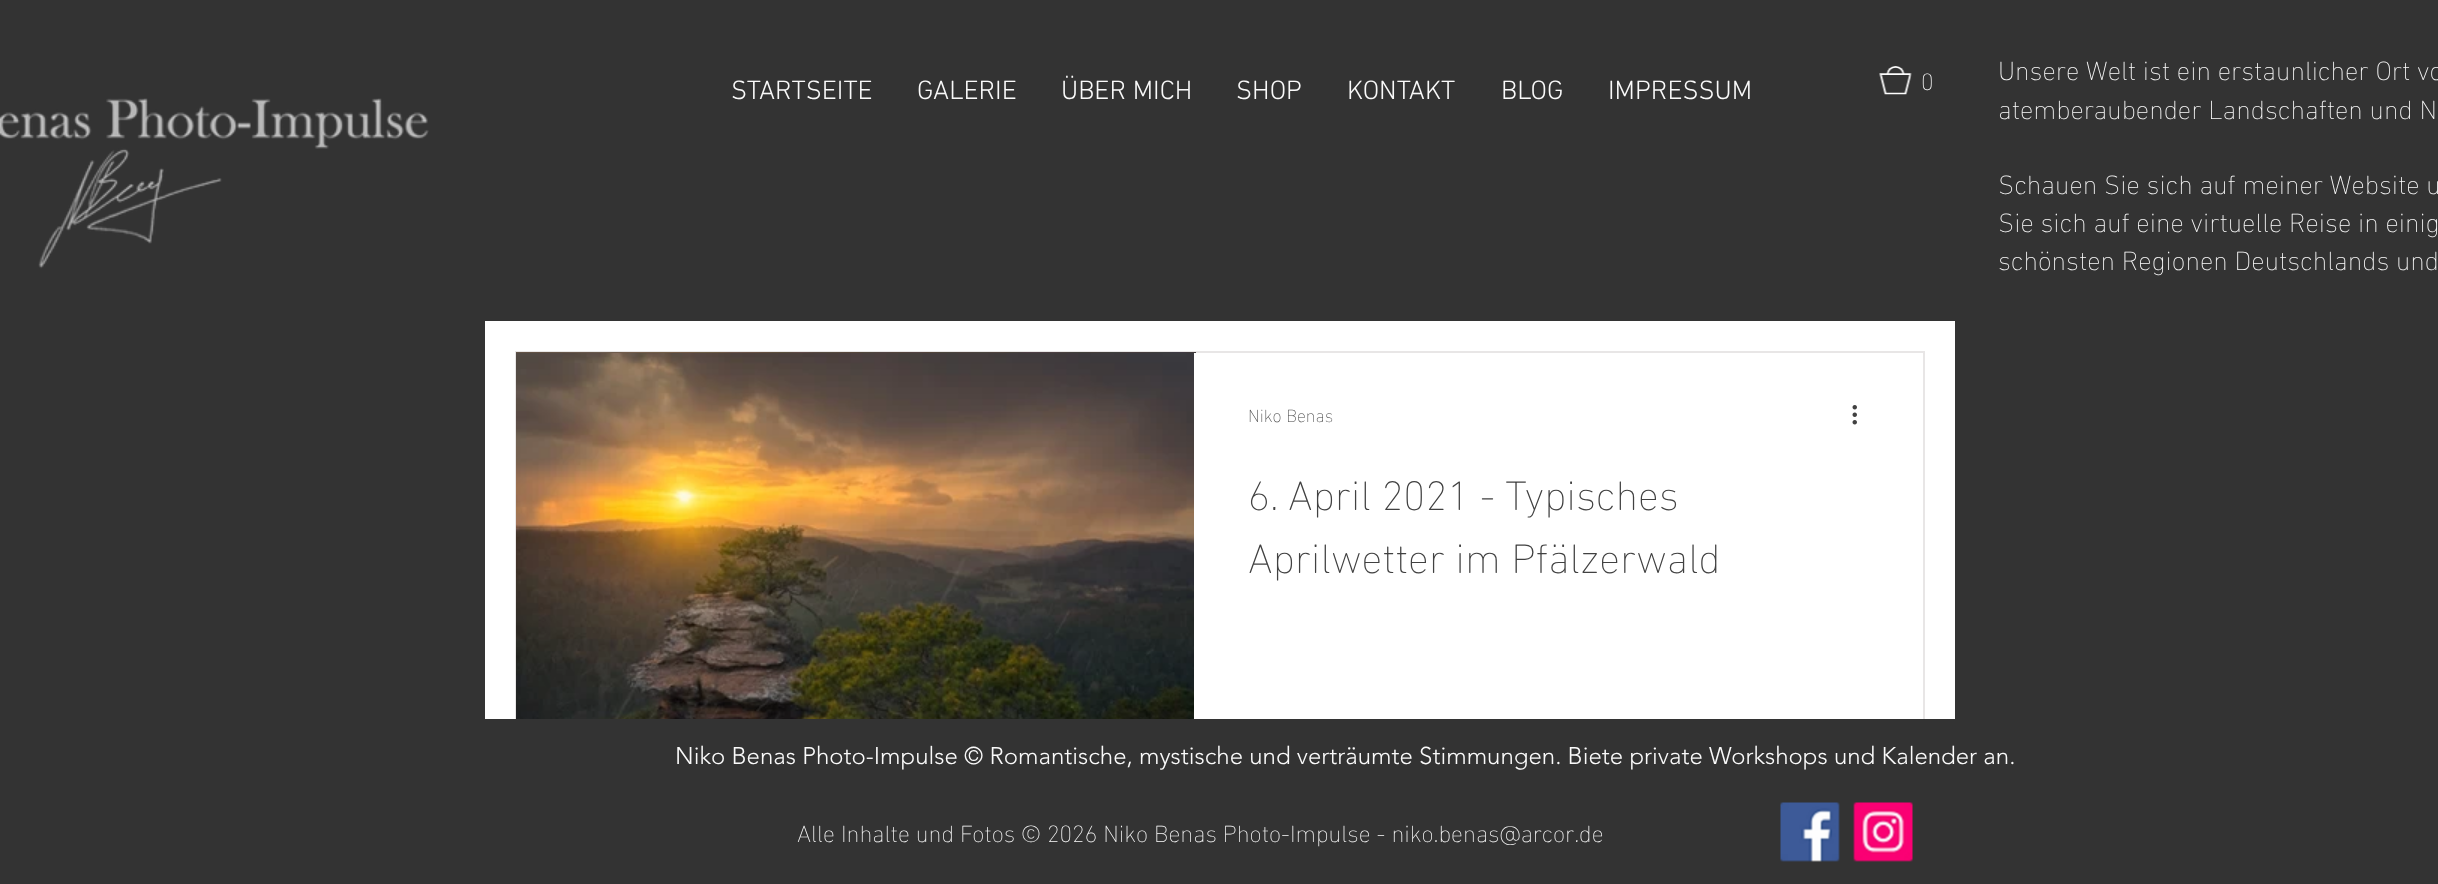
<svg xmlns="http://www.w3.org/2000/svg" width="2438" height="884" viewBox="0 0 2438 884">
  <rect width="100%" height="100%" fill="rgb(51,51,51)"/>
  <g font-family="'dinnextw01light'" font-size="27" font-weight="300" fill="rgb(250,250,250)">
    <text x="731" y="99">STARTSEITE</text>
    <text x="917" y="99">GALERIE</text>
    <text x="1061" y="99">ÜBER MICH</text>
    <text x="1236" y="99">SHOP</text>
    <text x="1347" y="99">KONTAKT</text>
    <text x="1501" y="99">BLOG</text>
    <text x="1608" y="99">IMPRESSUM</text>
  </g>
  <image x="1879" y="66" width="33" height="29" href="pic1.png"/>
  <text x="1921" y="90" font-family="'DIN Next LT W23'" font-size="24" font-weight="200" fill="rgb(250,250,250)">0</text>
  <g font-family="'DIN Next LT W23'" font-size="27" font-weight="200" fill="rgb(250,250,250)">
    <text>
      <tspan x="1998" y="80">Unsere Welt ist ein erstaunlicher Ort vo</tspan>
      <tspan x="1998" y="119">atemberaubender Landschaften und N</tspan>
    </text>
    <text>
      <tspan x="1998" y="194">Schauen Sie sich auf meiner Website u</tspan>
      <tspan x="1998" y="232">Sie sich auf eine virtuelle Reise in einig</tspan>
      <tspan x="1998" y="270">schönsten Regionen Deutschlands und</tspan>
    </text>
  </g>
  <image x="0" y="98" width="429" height="171" href="pic2.png"/>
  <rect x="485" y="321" width="1470" height="398" fill="rgb(255,255,255)"/>
  <rect x="516" y="352" width="1408" height="510" fill="none" stroke="rgb(232,230,230)" stroke-width="2"/>
  <image x="516" y="352" width="680" height="1" href="pic3.png"/>
  <image x="516" y="353" width="678" height="366" href="pic4.png"/>
  <text x="1248" y="422" font-family="'DIN Next LT W23'" font-size="18" font-weight="200" fill="rgb(65,65,65)">Niko Benas</text>
  <image x="1852" y="405" width="5" height="20" href="pic5.png"/>
  <g font-family="'DIN Next LT W23'" font-size="42" font-weight="200" fill="rgb(65,65,65)">
    <text>
      <tspan x="1248" y="510">6. April 2021 - Typisches</tspan>
      <tspan x="1248" y="573">Aprilwetter im Pfälzerwald</tspan>
    </text>
  </g>
  <rect x="515" y="719" width="1410" height="144" fill="rgb(51,51,51)"/>
  <text x="675" y="764" font-family="'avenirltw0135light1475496'" font-size="24" font-weight="300" fill="rgb(250,250,250)">Niko Benas Photo-Impulse © Romantische, mystische und verträumte Stimmungen. Biete private Workshops und Kalender an.</text>
  <text x="797" y="842" font-family="'DIN Next LT W23'" font-size="24" font-weight="200" fill="rgb(250,250,250)">Alle Inhalte und Fotos © 2026 Niko Benas Photo-Impulse - niko.benas@arcor.de</text>
  <image x="1780" y="802" width="60" height="60" href="pic6.png"/>
  <image x="1853" y="802" width="60" height="60" href="pic7.png"/>
</svg>
